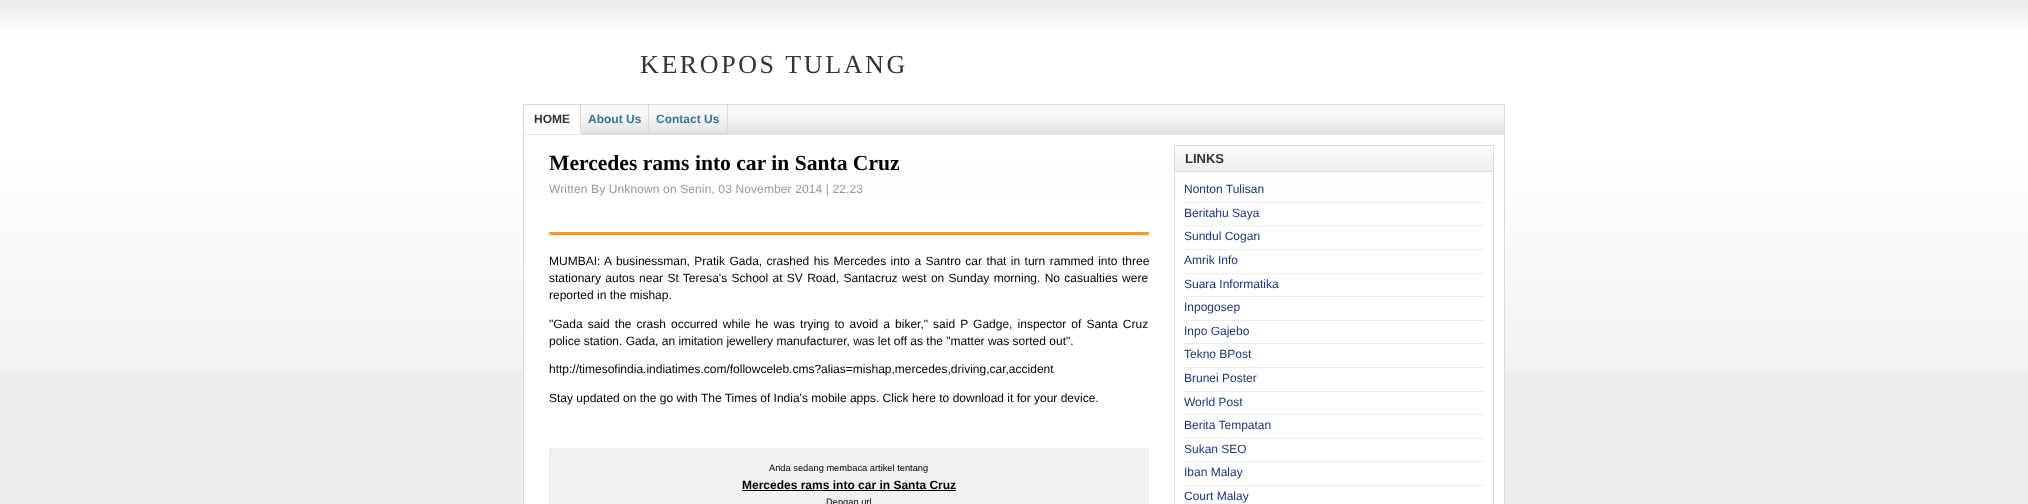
<svg xmlns="http://www.w3.org/2000/svg" width="2028" height="504" viewBox="0 0 2028 504">
  <rect width="100%" height="100%" fill="rgb(238,238,238)"/>
  <image x="0" y="10" width="2028" height="361" href="pic1.png"/>
  <text x="640" y="73" font-family="Liberation Serif" font-size="26" letter-spacing="2.6" fill="rgb(51,51,51)">KEROPOS TULANG</text>
  <image x="524" y="105" width="980" height="30" href="pic2.png"/>
  <rect x="523" y="104" width="982" height="1" fill="rgb(220,217,217)"/>
  <rect x="1504" y="104" width="1" height="400" fill="rgb(220,217,217)"/>
  <rect x="523" y="104" width="1" height="400" fill="rgb(220,217,217)"/>
  <rect x="524" y="105" width="56" height="28" fill="rgb(255,255,255)"/>
  <rect x="580" y="105" width="1" height="29" fill="rgb(218,220,222)"/>
  <rect x="524" y="133" width="57" height="1" fill="rgb(255,255,255)"/>
  <text x="534" y="123" font-family="Liberation Sans" font-size="12" font-weight="bold" fill="rgb(51,51,51)">HOME</text>
  <rect x="648" y="105" width="1" height="29" fill="rgb(218,220,222)"/>
  <rect x="581" y="133" width="68" height="1" fill="rgb(210,212,214)"/>
  <text x="588" y="123" font-family="Liberation Sans" font-size="12" font-weight="bold" fill="rgb(53,119,152)">About Us</text>
  <rect x="727" y="105" width="1" height="29" fill="rgb(218,220,222)"/>
  <rect x="649" y="133" width="79" height="1" fill="rgb(210,212,214)"/>
  <text x="656" y="123" font-family="Liberation Sans" font-size="12" font-weight="bold" fill="rgb(53,119,152)">Contact Us</text>
  <rect x="524" y="195" width="980" height="309" fill="rgb(255,255,255)"/>
  <text x="549" y="170" font-family="Liberation Serif" font-size="21.6" font-weight="bold" fill="rgb(0,0,0)">Mercedes rams into car in Santa Cruz</text>
  <text x="549" y="193" font-family="Liberation Sans" font-size="12" letter-spacing="0.12" fill="rgb(153,153,153)">Written By Unknown on Senin, 03 November 2014 | 22.23</text>
  <rect x="549" y="232" width="600" height="3" fill="rgb(254,154,46)"/>
  <g font-family="Liberation Sans" font-size="12" fill="rgb(0,0,0)">
    <text>
      <tspan x="549" y="265" word-spacing="1.1">MUMBAI: A businessman, Pratik Gada, crashed his Mercedes into a Santro car that in turn rammed into three</tspan>
      <tspan x="549" y="282" word-spacing="1">stationary autos near St Teresa's School at SV Road, Santacruz west on Sunday morning. No casualties were</tspan>
      <tspan x="549" y="299">reported in the mishap.</tspan>
    </text>
    <text>
      <tspan x="549" y="328" word-spacing="1.75">"Gada said the crash occurred while he was trying to avoid a biker," said P Gadge, inspector of Santa Cruz</tspan>
      <tspan x="549" y="345">police station. Gada, an imitation jewellery manufacturer, was let off as the "matter was sorted out".</tspan>
    </text>
    <text x="549" y="373">http://timesofindia.indiatimes.com/followceleb.cms?alias=mishap,mercedes,driving,car,accident</text>
    <text x="549" y="402">Stay updated on the go with The Times of India's mobile apps. Click here to download it for your device.</text>
  </g>
  <rect x="549.5" y="448.5" width="599" height="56" fill="rgb(241,241,241)" stroke="rgb(239,240,241)"/>
  <text x="769" y="471" font-family="Liberation Sans" font-size="9.3" fill="rgb(0,0,0)">Anda sedang membaca artikel tentang</text>
  <text x="742" y="489" font-family="Liberation Sans" font-size="12" font-weight="bold" fill="rgb(0,0,0)">Mercedes rams into car in Santa Cruz</text>
  <rect x="742" y="490" width="214" height="1" fill="rgb(0,0,0)"/>
  <text x="826" y="505" font-family="Liberation Sans" font-size="9.3" fill="rgb(0,0,0)">Dengan url</text>
  <rect x="1174.5" y="145.5" width="319" height="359" fill="none" stroke="rgb(220,217,217)"/>
  <image x="1175" y="149" width="318" height="22" href="pic3.png"/>
  <rect x="1175" y="171" width="318" height="1" fill="rgb(220,217,217)"/>
  <text x="1185" y="163" font-family="Liberation Sans" font-size="13" font-weight="bold" fill="rgb(51,51,51)">LINKS</text>
  <path d="M1184 202.5H1484" fill="none" stroke="rgb(220,217,217)" stroke-dasharray="1 1"/>
  <text x="1184" y="193" font-family="Liberation Sans" font-size="12" fill="rgb(22,56,124)">Nonton Tulisan</text>
  <path d="M1184 225.5H1484" fill="none" stroke="rgb(220,217,217)" stroke-dasharray="1 1"/>
  <text x="1184" y="217" font-family="Liberation Sans" font-size="12" fill="rgb(22,56,124)">Beritahu Saya</text>
  <path d="M1184 249.5H1484" fill="none" stroke="rgb(220,217,217)" stroke-dasharray="1 1"/>
  <text x="1184" y="240" font-family="Liberation Sans" font-size="12" fill="rgb(22,56,124)">Sundul Cogan</text>
  <path d="M1184 273.5H1484" fill="none" stroke="rgb(220,217,217)" stroke-dasharray="1 1"/>
  <text x="1184" y="264" font-family="Liberation Sans" font-size="12" fill="rgb(22,56,124)">Amrik Info</text>
  <path d="M1184 296.5H1484" fill="none" stroke="rgb(220,217,217)" stroke-dasharray="1 1"/>
  <text x="1184" y="288" font-family="Liberation Sans" font-size="12" fill="rgb(22,56,124)">Suara Informatika</text>
  <path d="M1184 320.5H1484" fill="none" stroke="rgb(220,217,217)" stroke-dasharray="1 1"/>
  <text x="1184" y="311" font-family="Liberation Sans" font-size="12" fill="rgb(22,56,124)">Inpogosep</text>
  <path d="M1184 343.5H1484" fill="none" stroke="rgb(220,217,217)" stroke-dasharray="1 1"/>
  <text x="1184" y="335" font-family="Liberation Sans" font-size="12" fill="rgb(22,56,124)">Inpo Gajebo</text>
  <path d="M1184 367.5H1484" fill="none" stroke="rgb(220,217,217)" stroke-dasharray="1 1"/>
  <text x="1184" y="358" font-family="Liberation Sans" font-size="12" fill="rgb(22,56,124)">Tekno BPost</text>
  <path d="M1184 391.5H1484" fill="none" stroke="rgb(220,217,217)" stroke-dasharray="1 1"/>
  <text x="1184" y="382" font-family="Liberation Sans" font-size="12" fill="rgb(22,56,124)">Brunei Poster</text>
  <path d="M1184 414.5H1484" fill="none" stroke="rgb(220,217,217)" stroke-dasharray="1 1"/>
  <text x="1184" y="406" font-family="Liberation Sans" font-size="12" fill="rgb(22,56,124)">World Post</text>
  <path d="M1184 438.5H1484" fill="none" stroke="rgb(220,217,217)" stroke-dasharray="1 1"/>
  <text x="1184" y="429" font-family="Liberation Sans" font-size="12" fill="rgb(22,56,124)">Berita Tempatan</text>
  <path d="M1184 461.5H1484" fill="none" stroke="rgb(220,217,217)" stroke-dasharray="1 1"/>
  <text x="1184" y="453" font-family="Liberation Sans" font-size="12" fill="rgb(22,56,124)">Sukan SEO</text>
  <path d="M1184 485.5H1484" fill="none" stroke="rgb(220,217,217)" stroke-dasharray="1 1"/>
  <g font-family="Liberation Sans" font-size="12" fill="rgb(22,56,124)">
    <text x="1184" y="476">Iban Malay</text>
    <text x="1184" y="500">Court Malay</text>
  </g>
</svg>
